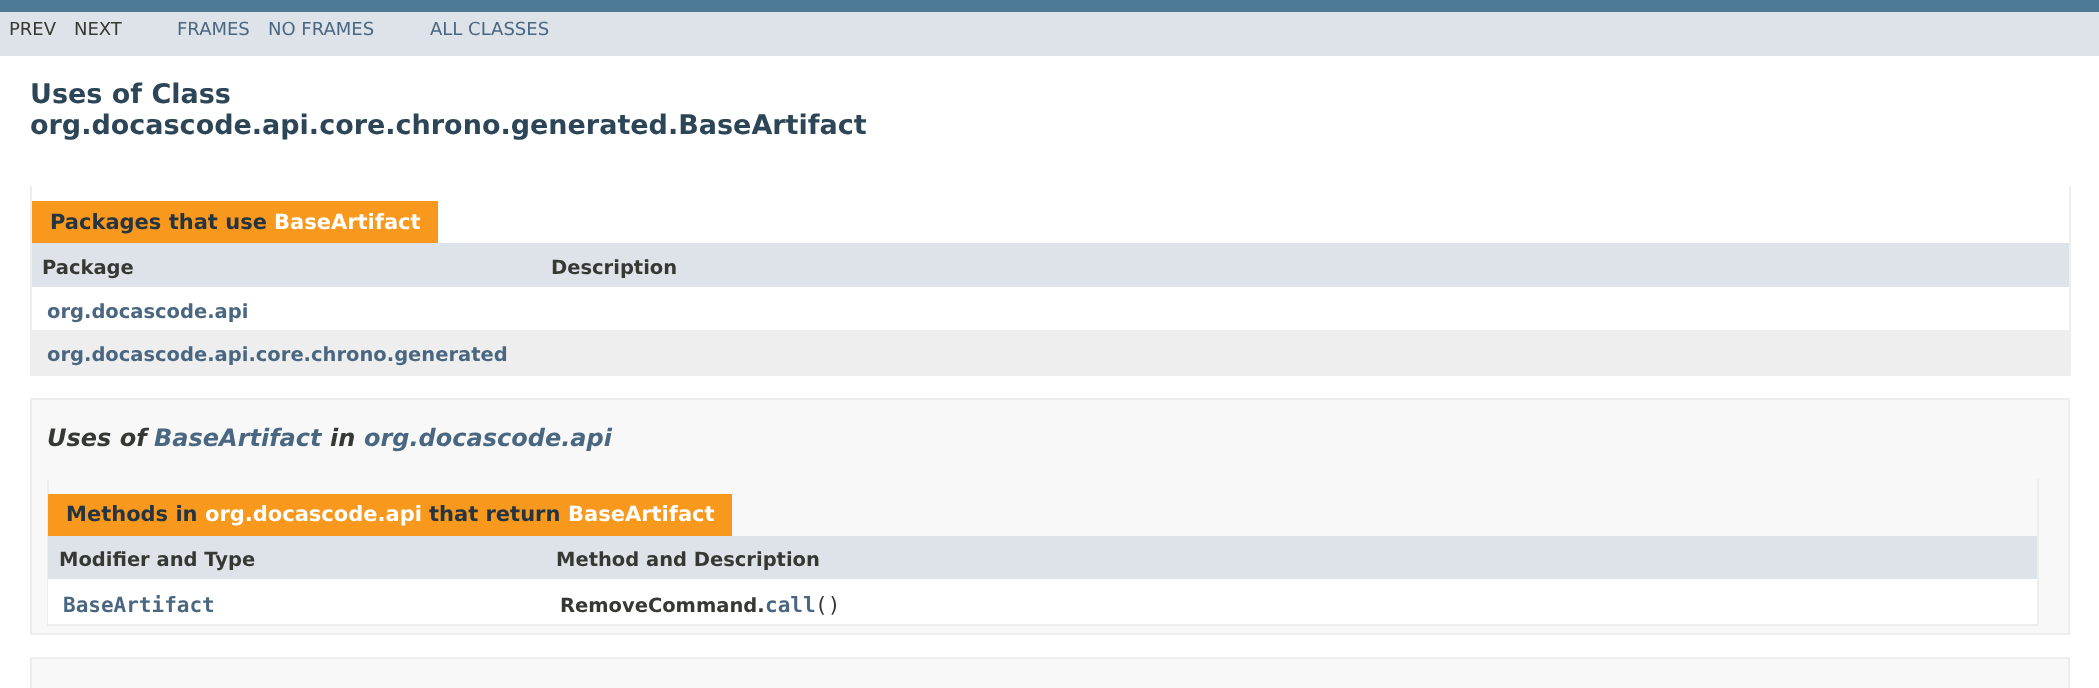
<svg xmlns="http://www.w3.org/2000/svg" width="2099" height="688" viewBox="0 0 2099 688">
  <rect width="100%" height="100%" fill="rgb(255,255,255)"/>
  <rect x="0" y="0" width="2099" height="12" fill="rgb(77,122,151)"/>
  <rect x="0" y="12" width="2099" height="44" fill="rgb(222,227,233)"/>
  <g font-family="DejaVu Sans" font-size="18" fill="rgb(53,56,51)">
    <text x="9" y="35">PREV</text>
    <text x="74" y="35">NEXT</text>
  </g>
  <g font-family="DejaVu Sans" font-size="18" fill="rgb(74,103,130)">
    <text x="177" y="35">FRAMES</text>
    <text x="268" y="35">NO FRAMES</text>
    <text x="430" y="35">ALL CLASSES</text>
  </g>
  <g font-family="DejaVu Sans" font-size="27" font-weight="bold" fill="rgb(44,69,87)">
    <text>
      <tspan x="30" y="103">Uses of Class</tspan>
      <tspan x="30" y="134">org.docascode.api.core.chrono.generated.BaseArtifact</tspan>
    </text>
  </g>
  <rect x="2069" y="186" width="2" height="189" fill="rgb(238,238,238)"/>
  <rect x="30" y="374" width="2040" height="2" fill="rgb(238,238,238)"/>
  <rect x="30" y="186" width="2" height="189" fill="rgb(238,238,238)"/>
  <rect x="32" y="201" width="406" height="42" fill="rgb(248,152,29)"/>
  <text x="50" y="229" font-family="DejaVu Sans" font-size="21" font-weight="bold" fill="rgb(37,52,65)">Packages that use</text>
  <text x="274" y="229" font-family="DejaVu Sans" font-size="21" font-weight="bold" fill="rgb(255,255,255)">BaseArtifact</text>
  <rect x="32" y="243" width="2037" height="44" fill="rgb(222,227,233)"/>
  <g font-family="DejaVu Sans" font-size="19.5" font-weight="bold" fill="rgb(53,56,51)">
    <text x="42" y="274">Package</text>
    <text x="551" y="274">Description</text>
  </g>
  <text x="47" y="318" font-family="DejaVu Sans" font-size="19.5" font-weight="bold" fill="rgb(74,103,130)">org.docascode.api</text>
  <rect x="32" y="330" width="2037" height="44" fill="rgb(238,238,239)"/>
  <text x="47" y="361" font-family="DejaVu Sans" font-size="19.5" font-weight="bold" fill="rgb(74,103,130)">org.docascode.api.core.chrono.generated</text>
  <rect x="31" y="399" width="2038" height="235" fill="rgb(248,248,248)" stroke="rgb(237,237,237)" stroke-width="2"/>
  <text x="47" y="446" font-family="DejaVu Sans" font-size="24" font-weight="bold" font-style="italic" fill="rgb(53,56,51)">Uses of</text>
  <text x="154" y="446" font-family="DejaVu Sans" font-size="24" font-weight="bold" font-style="italic" fill="rgb(74,103,130)">BaseArtifact</text>
  <text x="330" y="446" font-family="DejaVu Sans" font-size="24" font-weight="bold" font-style="italic" fill="rgb(53,56,51)">in</text>
  <text x="364" y="446" font-family="DejaVu Sans" font-size="24" font-weight="bold" font-style="italic" fill="rgb(74,103,130)">org.docascode.api</text>
  <rect x="2037" y="479" width="2" height="147" fill="rgb(238,238,238)"/>
  <rect x="47" y="624" width="1992" height="2" fill="rgb(238,238,238)"/>
  <rect x="47" y="479" width="2" height="147" fill="rgb(238,238,238)"/>
  <rect x="48" y="494" width="684" height="42" fill="rgb(248,152,29)"/>
  <text x="66" y="521" font-family="DejaVu Sans" font-size="21" font-weight="bold" fill="rgb(37,52,65)">Methods in</text>
  <text x="205" y="521" font-family="DejaVu Sans" font-size="21" font-weight="bold" fill="rgb(255,255,255)">org.docascode.api</text>
  <text x="429" y="521" font-family="DejaVu Sans" font-size="21" font-weight="bold" fill="rgb(37,52,65)">that return</text>
  <text x="568" y="521" font-family="DejaVu Sans" font-size="21" font-weight="bold" fill="rgb(255,255,255)">BaseArtifact</text>
  <rect x="48" y="536" width="1989" height="43" fill="rgb(222,227,233)"/>
  <g font-family="DejaVu Sans" font-size="19.5" font-weight="bold" fill="rgb(53,56,51)">
    <text x="59" y="566">Modifier and Type</text>
    <text x="556" y="566">Method and Description</text>
  </g>
  <rect x="48" y="579" width="1989" height="45" fill="rgb(255,255,255)"/>
  <text x="63" y="612" font-family="DejaVu Sans Mono" font-size="21" font-weight="bold" fill="rgb(74,103,130)">BaseArtifact</text>
  <text x="560" y="612" font-family="DejaVu Sans" font-size="19.5" font-weight="bold" fill="rgb(53,56,51)">RemoveCommand.</text>
  <text x="765" y="612" font-family="DejaVu Sans Mono" font-size="21" font-weight="bold" fill="rgb(74,103,130)">call</text>
  <text x="815" y="612" font-family="DejaVu Sans Mono" font-size="21" fill="rgb(53,56,51)">()</text>
  <rect x="31" y="658" width="2038" height="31" fill="rgb(248,248,248)" stroke="rgb(237,237,237)" stroke-width="2"/>
</svg>
